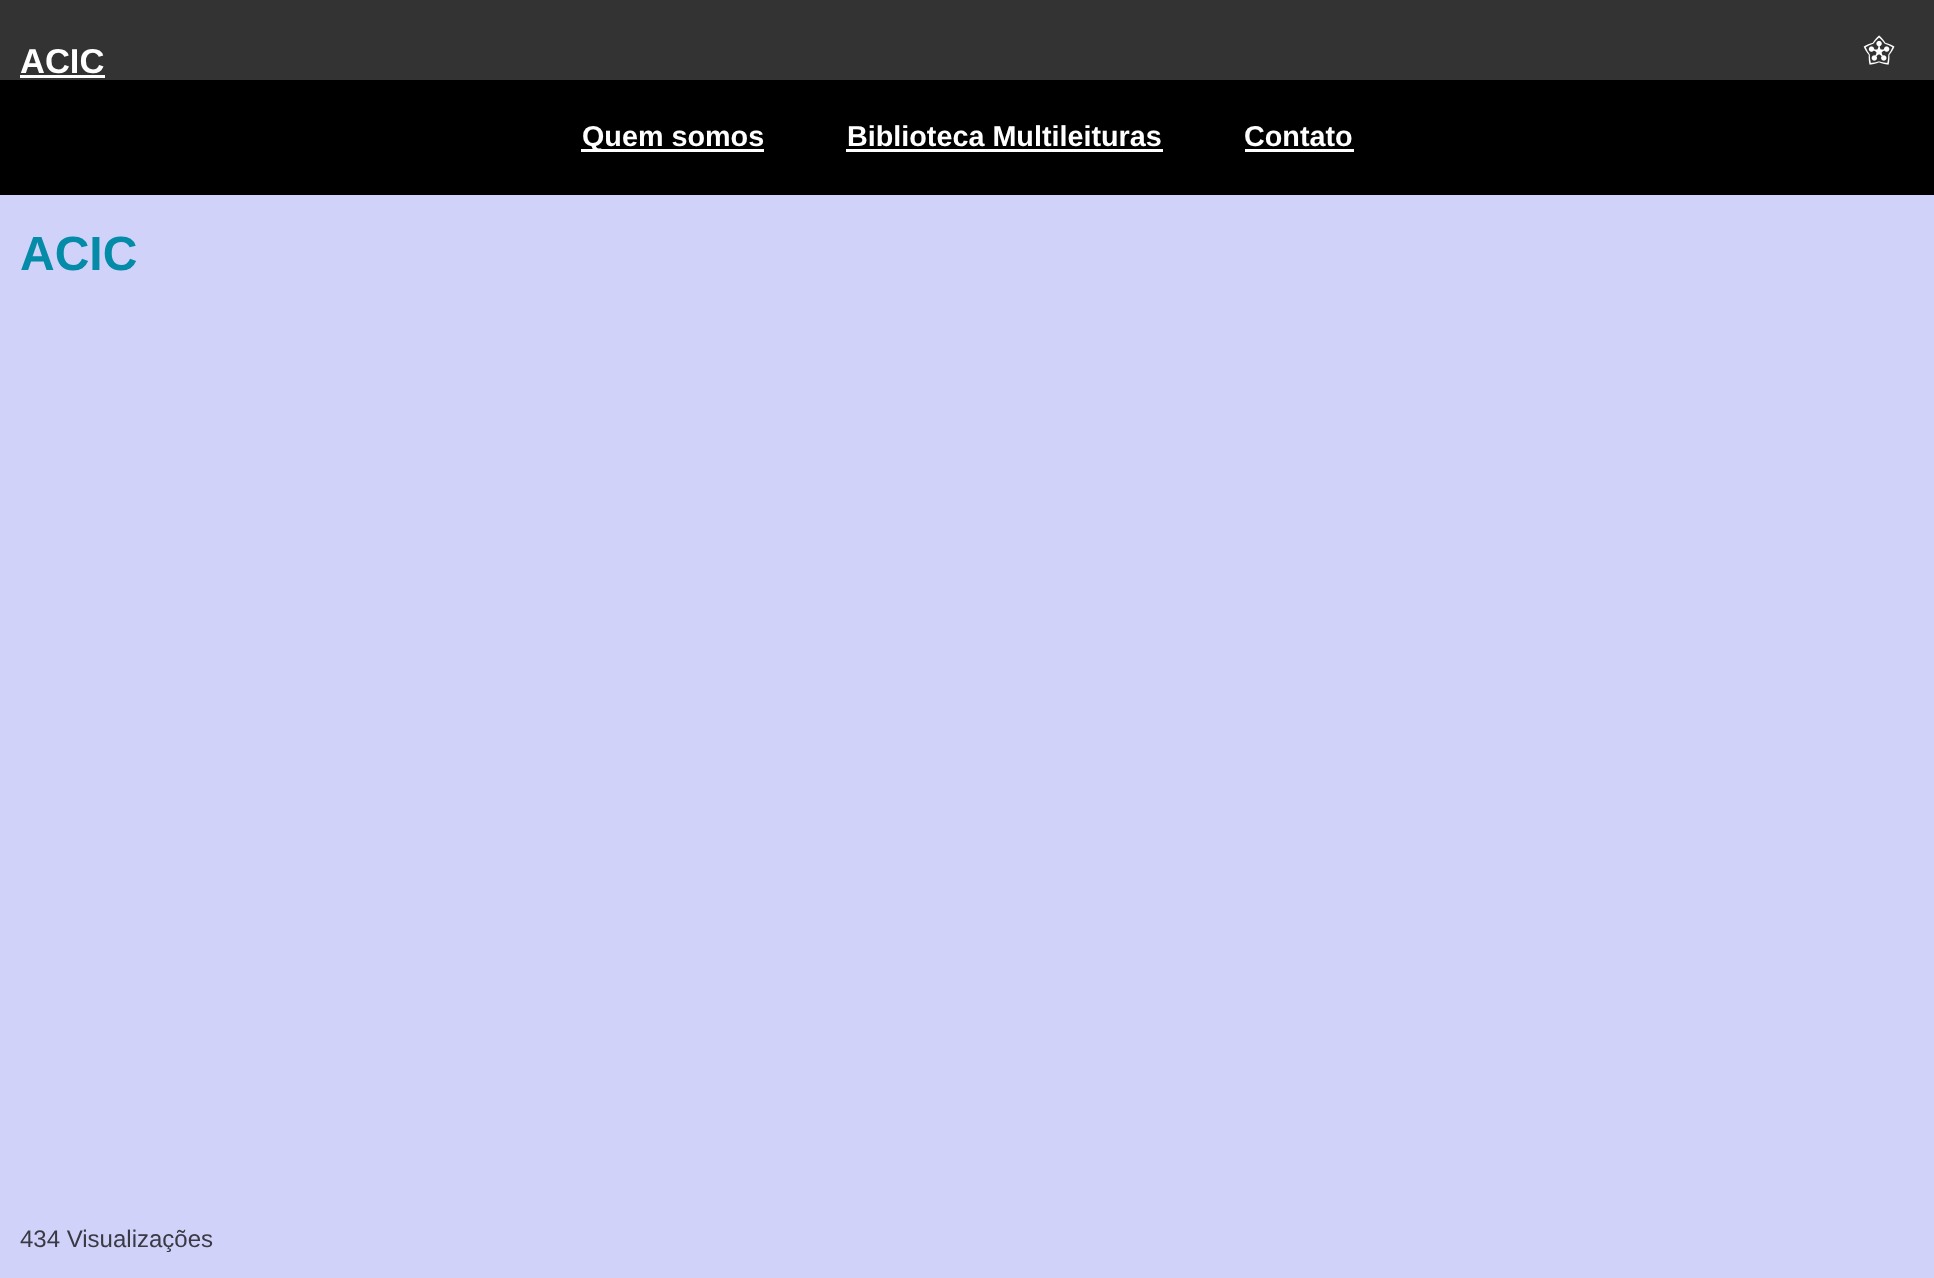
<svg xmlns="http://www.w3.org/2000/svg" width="1934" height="1278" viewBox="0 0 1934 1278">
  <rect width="100%" height="100%" fill="rgb(209,210,249)"/>
  <rect x="0" y="0" width="1934" height="80" fill="rgb(51,51,51)"/>
  <text x="20" y="73" font-family="Liberation Sans" font-size="34.5" font-weight="bold" fill="rgb(255,255,255)">ACIC</text>
  <rect x="20" y="75" width="85" height="3" fill="rgb(255,255,255)"/>
  <image x="1863" y="35" width="32" height="30" href="pic1.png"/>
  <rect x="0" y="80" width="1934" height="115" fill="rgb(0,0,0)"/>
  <rect x="581" y="149" width="183" height="3" fill="rgb(255,255,255)"/>
  <g font-family="Liberation Sans" font-size="28.75" font-weight="bold" fill="rgb(255,255,255)">
    <text x="582" y="146">Quem somos</text>
    <text x="847" y="146">Biblioteca Multileituras</text>
  </g>
  <rect x="846" y="149" width="317" height="3" fill="rgb(255,255,255)"/>
  <text x="1244" y="146" font-family="Liberation Sans" font-size="28.75" font-weight="bold" fill="rgb(255,255,255)">Contato</text>
  <rect x="1245" y="149" width="109" height="3" fill="rgb(255,255,255)"/>
  <text x="20" y="270" font-family="Liberation Sans" font-size="48" font-weight="bold" fill="rgb(4,139,168)">ACIC</text>
  <text x="20" y="1247" font-family="Liberation Sans" font-size="24" fill="rgb(57,58,68)">434 Visualizações</text>
</svg>
